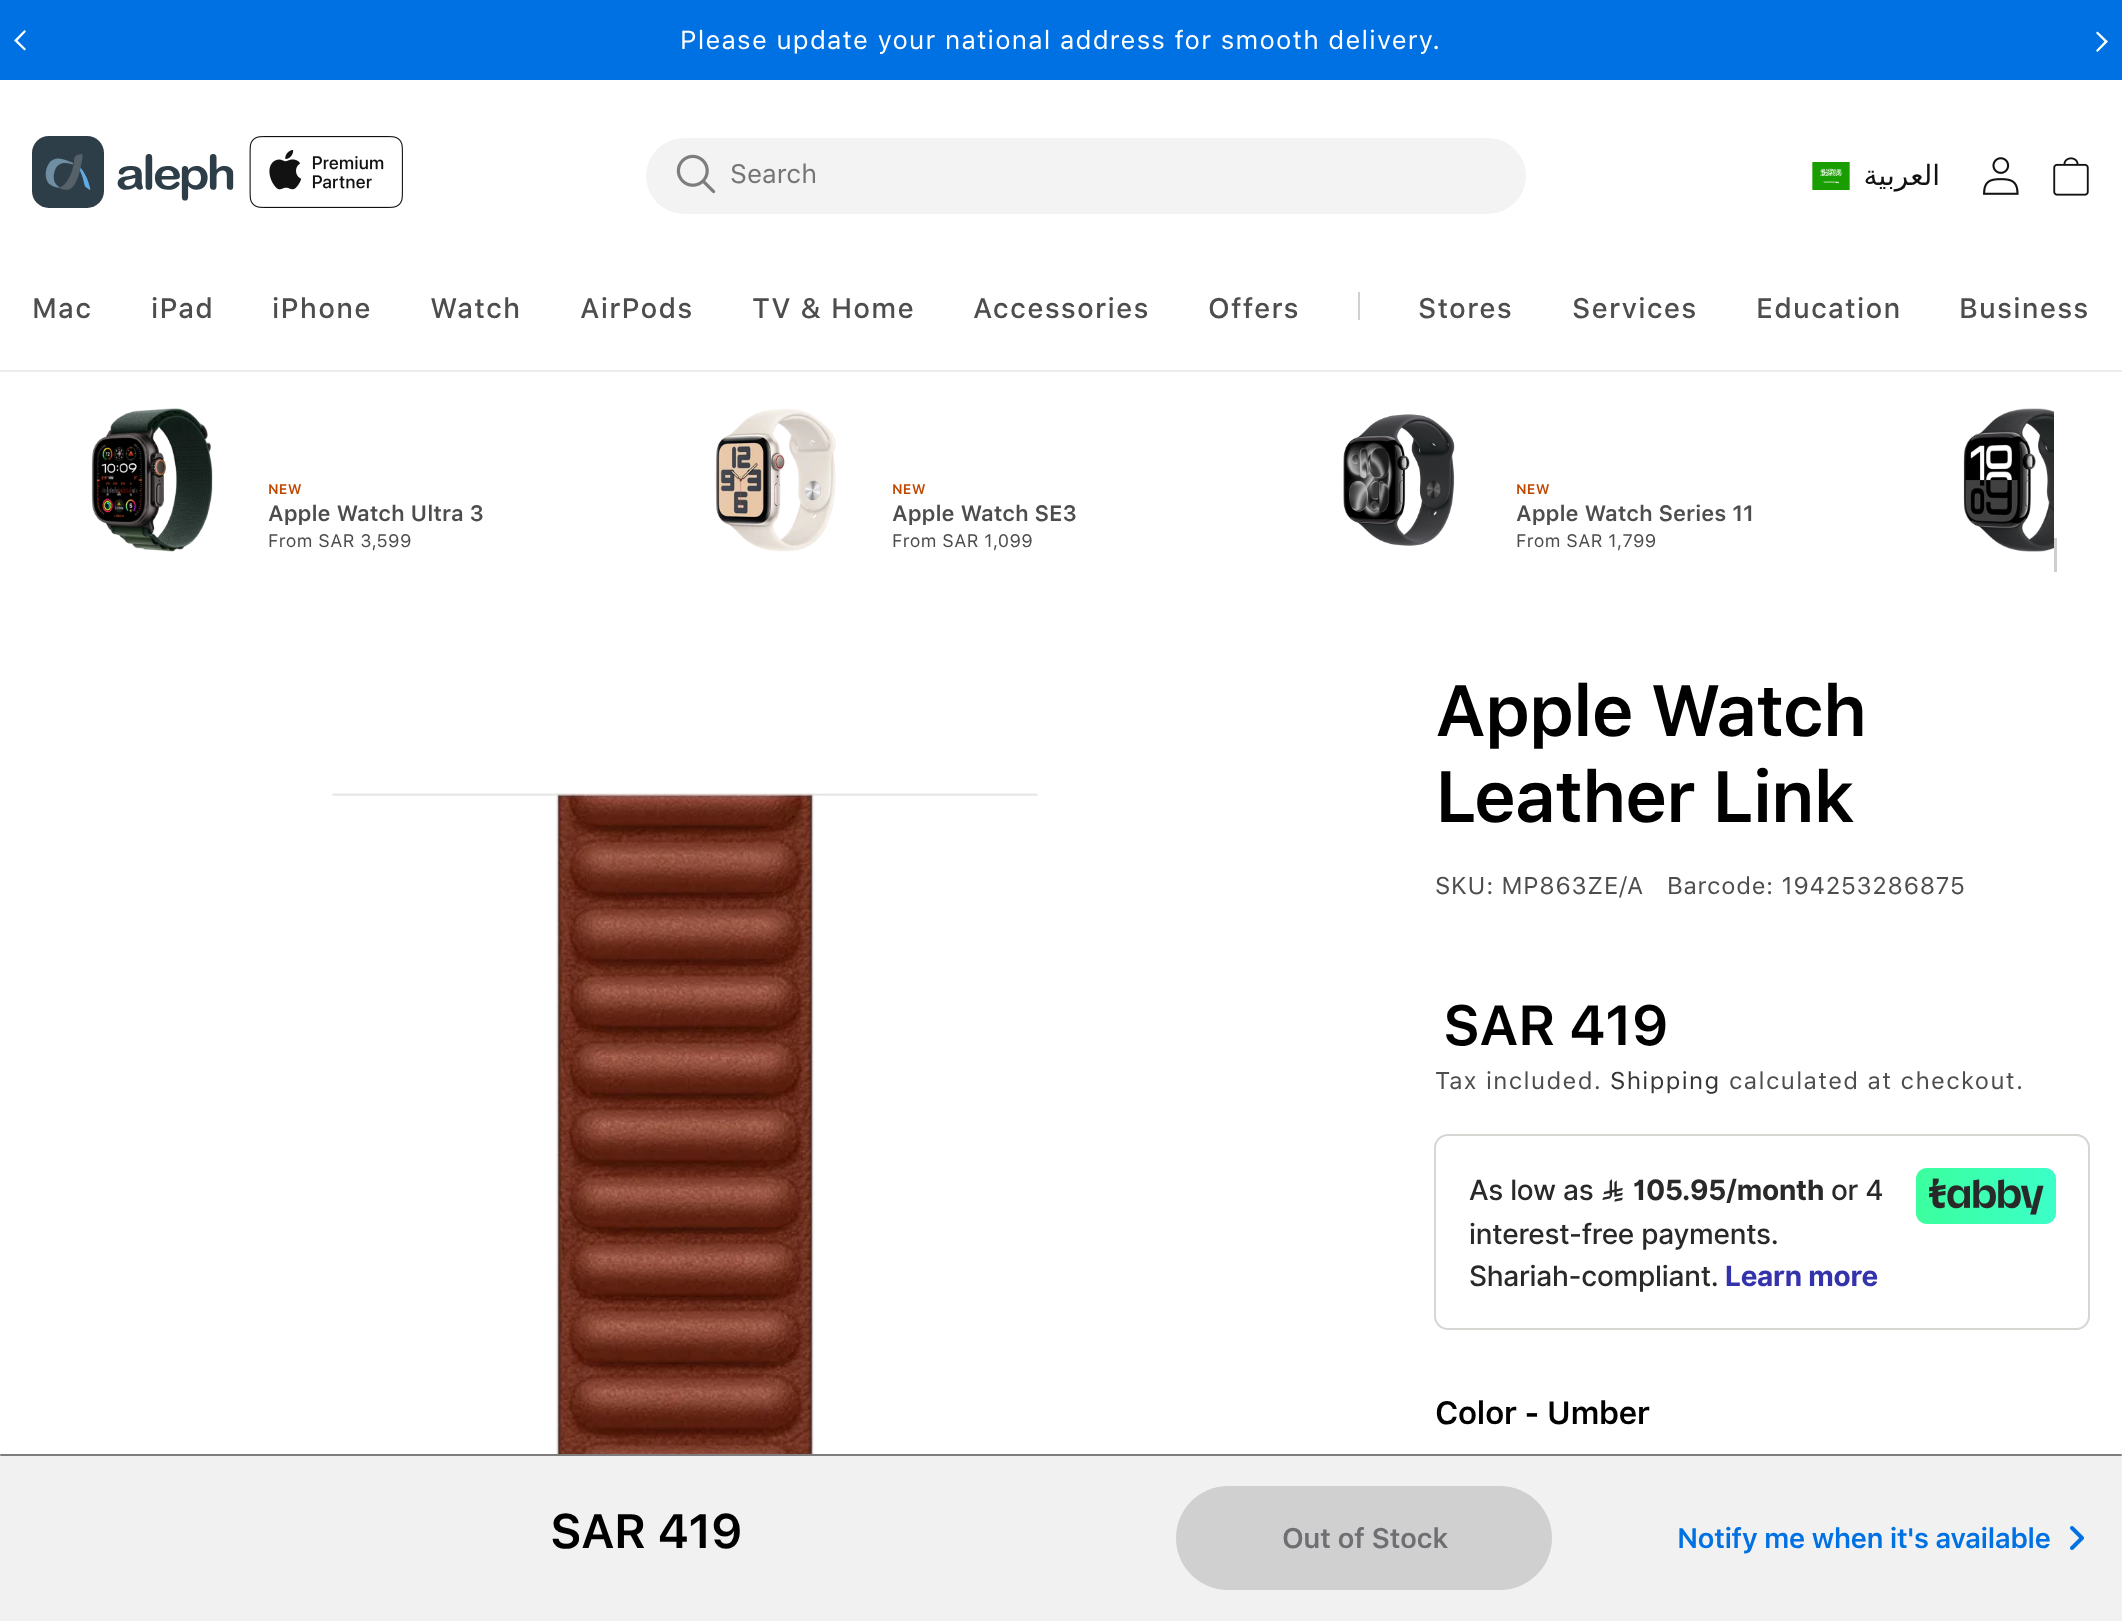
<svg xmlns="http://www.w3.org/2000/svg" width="2122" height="1621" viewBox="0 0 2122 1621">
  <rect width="100%" height="100%" fill="rgb(255,255,255)"/>
  <rect x="0" y="0" width="2122" height="80" fill="rgb(0,113,227)"/>
  <path d="M24.5 50.5L26 49L17.5 40.5L26 31.5L24.5 30L14 40.5Z" fill="rgb(255,255,255)" fill-rule="evenodd"/>
  <text x="680" y="49" font-family="SF Pro Text" font-size="26" letter-spacing="1.2" fill="rgb(255,255,255)">Please update your national address for smooth delivery.</text>
  <path d="M2097.5 31.5L2096 33L2104.5 41.5L2096 50.5L2097.5 52L2108 41.5Z" fill="rgb(255,255,255)" fill-rule="evenodd"/>
  <rect x="0" y="370" width="2122" height="2" fill="rgb(236,236,236)"/>
  <image x="32" y="136" width="202" height="72" href="pic1.png"/>
  <image x="249" y="136" width="154" height="72" href="pic2.png"/>
  <rect x="646" y="138" width="880" height="76" rx="38" fill="rgb(243,243,243)"/>
  <image x="676" y="154" width="40" height="40" href="pic3.png"/>
  <text x="730" y="183" font-family="SF Pro Text" font-size="26.5" fill="rgb(117,117,117)">Search</text>
  <image x="1812" y="162" width="38" height="28" href="pic4.png"/>
  <text x="1940" y="185" font-family="DejaVu Sans" font-size="28" letter-spacing="0.25" direction="rtl" fill="rgb(18,18,18)">العربية</text>
  <image x="1983" y="157" width="36" height="38" href="pic5.png"/>
  <image x="2053" y="157" width="36" height="39" href="pic6.png"/>
  <g font-family="SF Pro Text" font-size="28" font-weight="500" letter-spacing="1.2" fill="rgb(77,77,77)">
    <text x="32" y="318">Mac</text>
    <text x="151" y="318">iPad</text>
    <text x="272" y="318">iPhone</text>
    <text x="430" y="318">Watch</text>
    <text x="580" y="318">AirPods</text>
    <text x="752" y="318">TV &amp; Home</text>
    <text x="973" y="318">Accessories</text>
    <text x="1208" y="318">Offers</text>
  </g>
  <rect x="1358" y="292" width="2" height="28" fill="rgb(208,208,208)"/>
  <g font-family="SF Pro Text" font-size="28" font-weight="500" letter-spacing="1.2" fill="rgb(77,77,77)">
    <text x="1418" y="318">Stores</text>
    <text x="1572" y="318">Services</text>
    <text x="1756" y="318">Education</text>
    <text x="1959" y="318">Business</text>
  </g>
  <image x="91" y="408" width="122" height="144" href="pic7.png"/>
  <text x="268" y="494" font-family="SF Pro Text" font-size="14" font-weight="600" letter-spacing="0.25" fill="rgb(191,72,0)">NEW</text>
  <text x="268" y="521" font-family="SF Pro Text" font-size="22" font-weight="600" fill="rgb(77,77,77)">Apple Watch Ultra 3</text>
  <text x="268" y="547" font-family="SF Pro Text" font-size="18" letter-spacing="0.4" fill="rgb(77,77,77)">From SAR 3,599</text>
  <image x="715" y="408" width="121" height="144" href="pic8.png"/>
  <text x="892" y="494" font-family="SF Pro Text" font-size="14" font-weight="600" letter-spacing="0.25" fill="rgb(191,72,0)">NEW</text>
  <text x="892" y="521" font-family="SF Pro Text" font-size="22" font-weight="600" fill="rgb(77,77,77)">Apple Watch SE3</text>
  <text x="892" y="547" font-family="SF Pro Text" font-size="18" letter-spacing="0.4" fill="rgb(77,77,77)">From SAR 1,099</text>
  <image x="1343" y="414" width="112" height="132" href="pic9.png"/>
  <text x="1516" y="494" font-family="SF Pro Text" font-size="14" font-weight="600" letter-spacing="0.25" fill="rgb(191,72,0)">NEW</text>
  <text x="1516" y="521" font-family="SF Pro Text" font-size="22" font-weight="600" fill="rgb(77,77,77)">Apple Watch Series 11</text>
  <text x="1516" y="547" font-family="SF Pro Text" font-size="18" letter-spacing="0.4" fill="rgb(77,77,77)">From SAR 1,799</text>
  <image x="1963" y="408" width="91" height="144" href="pic10.png"/>
  <rect x="2054" y="538" width="3" height="34" fill="rgb(206,206,206)"/>
  <image x="332" y="793" width="706" height="661" href="pic11.png"/>
  <g font-family="SF Pro Text" font-size="72" font-weight="600" letter-spacing="-1.5" fill="rgb(0,0,0)">
    <text>
      <tspan x="1435" y="736">Apple Watch</tspan>
      <tspan x="1435" y="822">Leather Link</tspan>
    </text>
  </g>
  <g font-family="SF Pro Text" font-size="24" letter-spacing="0.75" fill="rgb(77,77,77)">
    <text x="1435" y="894">SKU: MP863ZE/A</text>
    <text x="1667" y="894">Barcode: 194253286875</text>
  </g>
  <text x="1443" y="1045" font-family="SF Pro Text" font-size="56" font-weight="600" letter-spacing="-1" fill="rgb(0,0,0)">SAR 419</text>
  <text x="1435" y="1089" font-family="SF Pro Text" font-size="24" letter-spacing="1.4" fill="rgb(77,77,77)">Tax included.</text>
  <text x="1610" y="1089" font-family="SF Pro Text" font-size="24" letter-spacing="1.4" fill="rgb(54,54,54)">Shipping</text>
  <text x="1729" y="1089" font-family="SF Pro Text" font-size="24" letter-spacing="1.4" fill="rgb(77,77,77)">calculated at checkout.</text>
  <rect x="1435" y="1135" width="654" height="194" rx="13" fill="none" stroke="rgb(214,214,211)" stroke-width="2"/>
  <text x="1469" y="1200" font-family="Inter" font-size="28" font-weight="500" letter-spacing="-0.25" fill="rgb(41,41,41)">As low as</text>
  <image x="1602" y="1179" width="21" height="23" href="pic12.png"/>
  <text x="1633" y="1200" font-family="Inter" font-size="28" font-weight="bold" letter-spacing="-0.25" fill="rgb(41,41,41)">105.95/month</text>
  <g font-family="Inter" font-size="28" font-weight="500" letter-spacing="-0.25" fill="rgb(41,41,41)">
    <text x="1831" y="1200">or 4</text>
    <text>
      <tspan x="1469" y="1244">interest-free payments.</tspan>
      <tspan x="1469" y="1286">Shariah-compliant.</tspan>
    </text>
  </g>
  <text x="1725" y="1286" font-family="Inter" font-size="28" font-weight="bold" letter-spacing="-0.25" fill="rgb(53,51,172)">Learn more</text>
  <image x="1916" y="1168" width="140" height="56" href="pic13.png"/>
  <text x="1435" y="1424" font-family="SF Pro Text" font-size="32" font-weight="600" letter-spacing="-0.65" fill="rgb(0,0,0)">Color - Umber</text>
  <rect x="0" y="1454" width="2122" height="167" fill="rgb(241,241,241)"/>
  <rect x="0" y="1454" width="2122" height="2" rx="1" fill="rgb(125,125,125)"/>
  <text x="550" y="1548" font-family="SF Pro Text" font-size="48" font-weight="600" letter-spacing="-1" fill="rgb(0,0,0)">SAR 419</text>
  <rect x="1176" y="1486" width="376" height="104" rx="52" fill="rgb(208,208,208)"/>
  <text x="1282" y="1548" font-family="SF Pro Text" font-size="28" font-weight="600" letter-spacing="-0.5" fill="rgb(110,110,115)">Out of Stock</text>
  <text x="1677" y="1548" font-family="SF Pro Text" font-size="28" font-weight="600" letter-spacing="-0.65" fill="rgb(0,113,227)">Notify me when it's available</text>
  <image x="2070" y="1526" width="14" height="24" href="pic14.png"/>
</svg>
